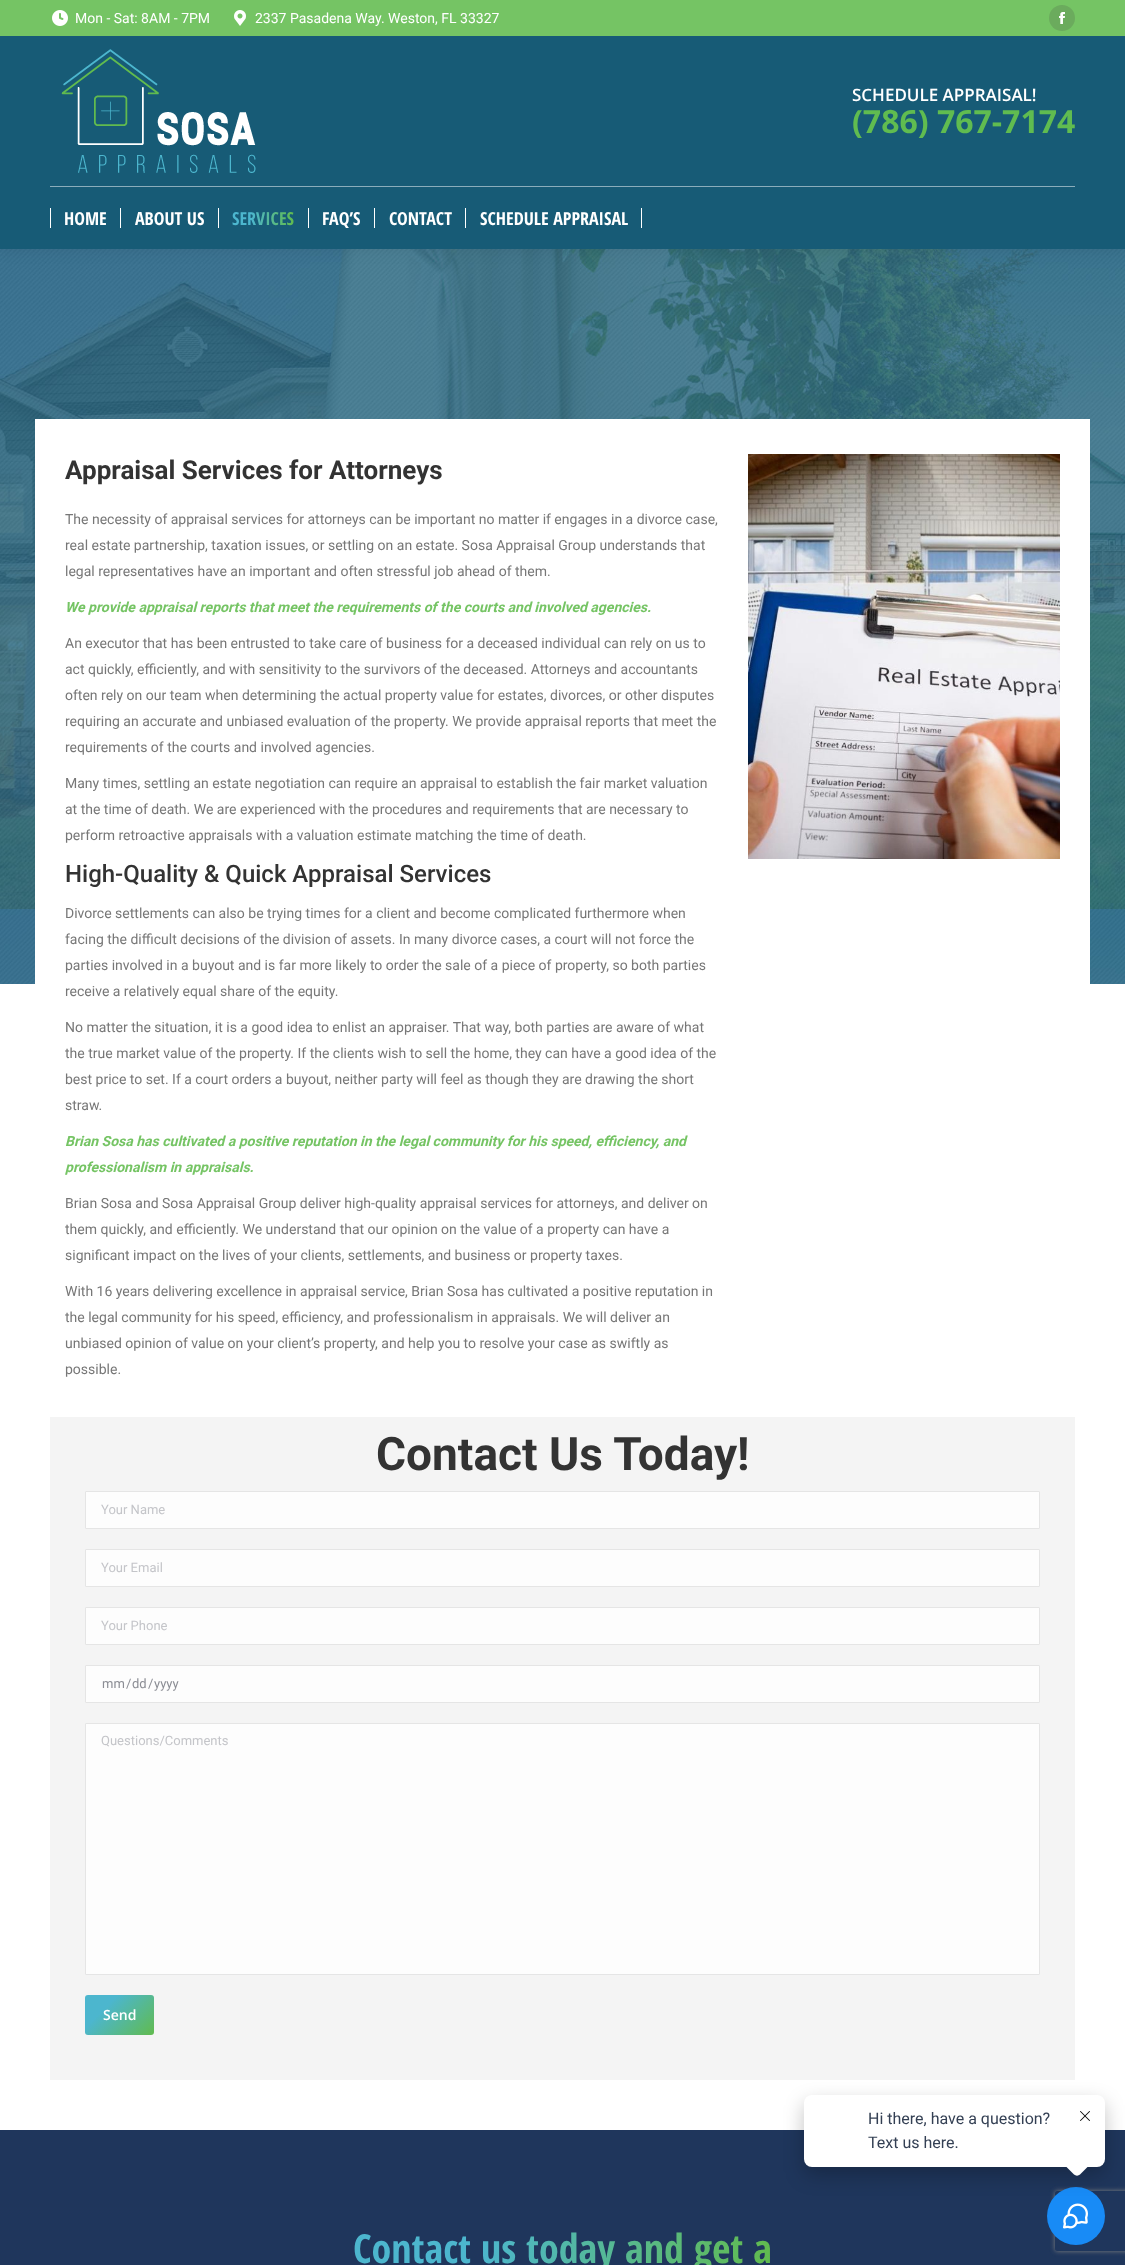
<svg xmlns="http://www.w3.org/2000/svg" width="1125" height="2265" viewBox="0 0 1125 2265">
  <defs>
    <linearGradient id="g1" gradientUnits="userSpaceOnUse" x1="232" y1="218" x2="294" y2="218"><stop offset="0.3" stop-color="rgb(76,182,206)"/><stop offset="1" stop-color="rgb(97,187,78)"/></linearGradient>
    <linearGradient id="g2" gradientUnits="userSpaceOnUse" x1="353" y1="2248" x2="772" y2="2248"><stop offset="0.3" stop-color="rgb(76,182,206)"/><stop offset="1" stop-color="rgb(97,187,78)"/></linearGradient>
    <linearGradient id="g3" gradientUnits="userSpaceOnUse" x1="92" y1="1988" x2="147" y2="2042"><stop offset="0.3" stop-color="rgb(76,182,206)"/><stop offset="1" stop-color="rgb(97,187,78)"/></linearGradient>
    <clipPath id="clip1"><path d="M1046 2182H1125V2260H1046ZM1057 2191H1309C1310 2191 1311 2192 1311 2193V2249C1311 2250 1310 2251 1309 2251H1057C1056 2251 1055 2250 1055 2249V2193C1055 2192 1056 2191 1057 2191Z" clip-rule="evenodd"/></clipPath>
  </defs>
  <rect width="100%" height="100%" fill="rgb(255,255,255)"/>
  <image x="0" y="249" width="1125" height="735" href="pic5.png"/>
  <rect x="-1" y="-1" width="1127" height="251" fill="rgba(0,0,0,0.07)" filter="blur(7.5px)"/>
  <rect x="0" y="36" width="1125" height="213" fill="rgb(23,91,118)"/>
  <rect x="0" y="0" width="1125" height="36" fill="rgb(117,196,100)"/>
  <image x="52" y="10" width="16" height="16" href="pic1.png"/>
  <text x="75" y="23" font-family="Roboto" font-size="14" fill="rgb(255,255,255)">Mon - Sat: 8AM - 7PM</text>
  <image x="234" y="10" width="12" height="16" href="pic2.png"/>
  <text x="255" y="23" font-family="Roboto" font-size="14" fill="rgb(255,255,255)">2337 Pasadena Way. Weston, FL 33327</text>
  <circle cx="1062" cy="18" r="13" fill="rgb(107,171,93)"/>
  <image x="1059" y="12" width="6" height="12" href="pic3.png"/>
  <image x="61" y="49" width="195" height="124" href="pic4.png"/>
  <text x="852" y="101" font-family="Open Sans" font-size="17" font-weight="600" fill="rgb(255,255,255)">SCHEDULE APPRAISAL!</text>
  <text x="852" y="133" font-family="Open Sans" font-size="32" font-weight="bold" fill="rgb(96,188,80)">(786) 767-7174</text>
  <rect x="50" y="186" width="1025" height="1" fill="rgb(139,173,187)"/>
  <rect x="50" y="208" width="1" height="20" fill="rgb(255,255,255)"/>
  <text x="64" y="225" font-family="Open Sans Condensed" font-size="18" font-weight="bold" fill="rgb(255,255,255)">HOME</text>
  <rect x="120" y="208" width="1" height="20" fill="rgb(255,255,255)"/>
  <text x="135" y="225" font-family="Open Sans Condensed" font-size="18" font-weight="bold" fill="rgb(255,255,255)">ABOUT US</text>
  <rect x="218" y="208" width="1" height="20" fill="rgb(255,255,255)"/>
  <text x="232" y="225" font-family="Open Sans Condensed" font-size="18" font-weight="bold" fill="url(#g1)">SERVICES</text>
  <rect x="308" y="208" width="1" height="20" fill="rgb(255,255,255)"/>
  <text x="322" y="225" font-family="Open Sans Condensed" font-size="18" font-weight="bold" fill="rgb(255,255,255)">FAQ’S</text>
  <rect x="374" y="208" width="1" height="20" fill="rgb(255,255,255)"/>
  <text x="389" y="225" font-family="Open Sans Condensed" font-size="18" font-weight="bold" fill="rgb(255,255,255)">CONTACT</text>
  <rect x="465" y="208" width="1" height="20" fill="rgb(255,255,255)"/>
  <text x="480" y="225" font-family="Open Sans Condensed" font-size="18" font-weight="bold" fill="rgb(255,255,255)">SCHEDULE APPRAISAL</text>
  <rect x="641" y="208" width="1" height="20" fill="rgb(255,255,255)"/>
  <rect x="35" y="419" width="1055" height="565" fill="rgb(255,255,255)"/>
  <text x="65" y="479" font-family="Roboto" font-size="26" font-weight="bold" fill="rgb(51,51,51)">Appraisal Services for Attorneys</text>
  <g font-family="Roboto" font-size="14" fill="rgb(119,119,119)">
    <text>
      <tspan x="65" y="524">The necessity of appraisal services for attorneys can be important no matter if engages in a divorce case,</tspan>
      <tspan x="65" y="550">real estate partnership, taxation issues, or settling on an estate. Sosa Appraisal Group understands that</tspan>
      <tspan x="65" y="576">legal representatives have an important and often stressful job ahead of them.</tspan>
    </text>
  </g>
  <text x="65" y="612" font-family="Roboto" font-size="14" font-weight="bold" font-style="italic" fill="rgb(117,196,100)">We provide appraisal reports that meet the requirements of the courts and involved agencies.</text>
  <g font-family="Roboto" font-size="14" fill="rgb(119,119,119)">
    <text>
      <tspan x="65" y="648">An executor that has been entrusted to take care of business for a deceased individual can rely on us to</tspan>
      <tspan x="65" y="674">act quickly, efficiently, and with sensitivity to the survivors of the deceased. Attorneys and accountants</tspan>
      <tspan x="65" y="700">often rely on our team when determining the actual property value for estates, divorces, or other disputes</tspan>
      <tspan x="65" y="726">requiring an accurate and unbiased evaluation of the property. We provide appraisal reports that meet the</tspan>
      <tspan x="65" y="752">requirements of the courts and involved agencies.</tspan>
    </text>
    <text>
      <tspan x="65" y="788">Many times, settling an estate negotiation can require an appraisal to establish the fair market valuation</tspan>
      <tspan x="65" y="814">at the time of death. We are experienced with the procedures and requirements that are necessary to</tspan>
      <tspan x="65" y="840">perform retroactive appraisals with a valuation estimate matching the time of death.</tspan>
    </text>
  </g>
  <text x="65" y="882" font-family="Roboto" font-size="24" font-weight="500" fill="rgb(51,51,51)">High-Quality &amp; Quick Appraisal Services</text>
  <g font-family="Roboto" font-size="14" fill="rgb(119,119,119)">
    <text>
      <tspan x="65" y="918">Divorce settlements can also be trying times for a client and become complicated furthermore when</tspan>
      <tspan x="65" y="944">facing the difficult decisions of the division of assets. In many divorce cases, a court will not force the</tspan>
      <tspan x="65" y="970">parties involved in a buyout and is far more likely to order the sale of a piece of property, so both parties</tspan>
      <tspan x="65" y="996">receive a relatively equal share of the equity.</tspan>
    </text>
    <text>
      <tspan x="65" y="1032">No matter the situation, it is a good idea to enlist an appraiser. That way, both parties are aware of what</tspan>
      <tspan x="65" y="1058">the true market value of the property. If the clients wish to sell the home, they can have a good idea of the</tspan>
      <tspan x="65" y="1084">best price to set. If a court orders a buyout, neither party will feel as though they are drawing the short</tspan>
      <tspan x="65" y="1110">straw.</tspan>
    </text>
  </g>
  <g font-family="Roboto" font-size="14" font-weight="bold" font-style="italic" fill="rgb(117,196,100)">
    <text>
      <tspan x="65" y="1146">Brian Sosa has cultivated a positive reputation in the legal community for his speed, efficiency, and</tspan>
      <tspan x="65" y="1172">professionalism in appraisals.</tspan>
    </text>
  </g>
  <g font-family="Roboto" font-size="14" fill="rgb(119,119,119)">
    <text>
      <tspan x="65" y="1208">Brian Sosa and Sosa Appraisal Group deliver high-quality appraisal services for attorneys, and deliver on</tspan>
      <tspan x="65" y="1234">them quickly, and efficiently. We understand that our opinion on the value of a property can have a</tspan>
      <tspan x="65" y="1260">significant impact on the lives of your clients, settlements, and business or property taxes.</tspan>
    </text>
    <text>
      <tspan x="65" y="1296">With 16 years delivering excellence in appraisal service, Brian Sosa has cultivated a positive reputation in</tspan>
      <tspan x="65" y="1322">the legal community for his speed, efficiency, and professionalism in appraisals. We will deliver an</tspan>
      <tspan x="65" y="1348">unbiased opinion of value on your client’s property, and help you to resolve your case as swiftly as</tspan>
      <tspan x="65" y="1374">possible.</tspan>
    </text>
  </g>
  <image x="748" y="454" width="312" height="405" href="pic6.png"/>
  <rect x="50" y="1417" width="1025" height="663" fill="rgb(244,244,244)"/>
  <text x="376" y="1470" font-family="Roboto" font-size="46" font-weight="bold" fill="rgb(51,51,51)">Contact Us Today!</text>
  <rect x="85.5" y="1491.5" width="954" height="37" rx="0.5" fill="rgb(253,253,253)" stroke="rgb(229,229,229)"/>
  <text x="101" y="1514" font-family="Roboto" font-size="13" fill="rgb(196,197,201)">Your Name</text>
  <rect x="85.5" y="1549.5" width="954" height="37" rx="0.5" fill="rgb(253,253,253)" stroke="rgb(229,229,229)"/>
  <text x="101" y="1572" font-family="Roboto" font-size="13" fill="rgb(196,197,201)">Your Email</text>
  <rect x="85.5" y="1607.5" width="954" height="37" rx="0.5" fill="rgb(253,253,253)" stroke="rgb(229,229,229)"/>
  <text x="101" y="1630" font-family="Roboto" font-size="13" fill="rgb(196,197,201)">Your Phone</text>
  <rect x="85.5" y="1665.5" width="954" height="37" rx="0.5" fill="rgb(253,253,253)" stroke="rgb(229,229,229)"/>
  <g font-family="Roboto" font-size="13" fill="rgb(139,141,148)">
    <text x="102" y="1688">mm</text>
    <text x="126" y="1688">/</text>
    <text x="132" y="1688">dd</text>
    <text x="148" y="1688">/</text>
    <text x="154" y="1688">yyyy</text>
  </g>
  <rect x="85.5" y="1723.5" width="954" height="251" rx="0.5" fill="rgb(253,253,253)" stroke="rgb(229,229,229)"/>
  <text x="101" y="1745" font-family="Roboto" font-size="13" fill="rgb(196,197,201)">Questions/Comments</text>
  <rect x="85" y="1995" width="69" height="40" rx="3" fill="url(#g3)"/>
  <text x="103" y="2020" font-family="Open Sans" font-size="14" font-weight="600" fill="rgb(255,255,255)">Send</text>
  <rect x="0" y="2130" width="1125" height="135" fill="rgb(31,54,92)"/>
  <text x="353" y="2263" font-family="Open Sans Condensed" font-size="40" font-weight="bold" fill="url(#g2)">Contact us today and get a</text>
  <g clip-path="url(#clip1)">
    <rect x="1055" y="2191" width="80" height="60" rx="2" fill="rgb(128,128,128)" filter="blur(2.5px)"/>
  </g>
  <circle cx="1076" cy="2216" r="29" fill="rgb(24,139,246)"/>
  <image x="1063" y="2203" width="25" height="26" href="pic8.png"/>
  <rect x="804" y="2103" width="301" height="72" rx="8" fill="rgba(0,0,0,0.24)" filter="blur(10px)"/>
  <rect x="804" y="2095" width="301" height="72" rx="8" fill="rgb(255,255,255)"/>
  <g font-family="Roboto" font-size="16" fill="rgb(52,64,84)">
    <text>
      <tspan x="868" y="2124">Hi there, have a question?</tspan>
      <tspan x="868" y="2148">Text us here.</tspan>
    </text>
  </g>
  <path d="M1080 2151.5L1088.5 2160C1090 2161.5 1090 2164.5 1088.5 2166L1080 2174.5C1078.5 2176 1075.5 2176 1074 2174.5L1065.5 2166C1064 2164.5 1064 2161.5 1065.5 2160L1074 2151.5C1075.5 2150 1078.5 2150 1080 2151.5Z" fill="rgb(255,255,255)"/>
  <image x="1080" y="2111" width="10" height="10" href="pic7.png"/>
</svg>
